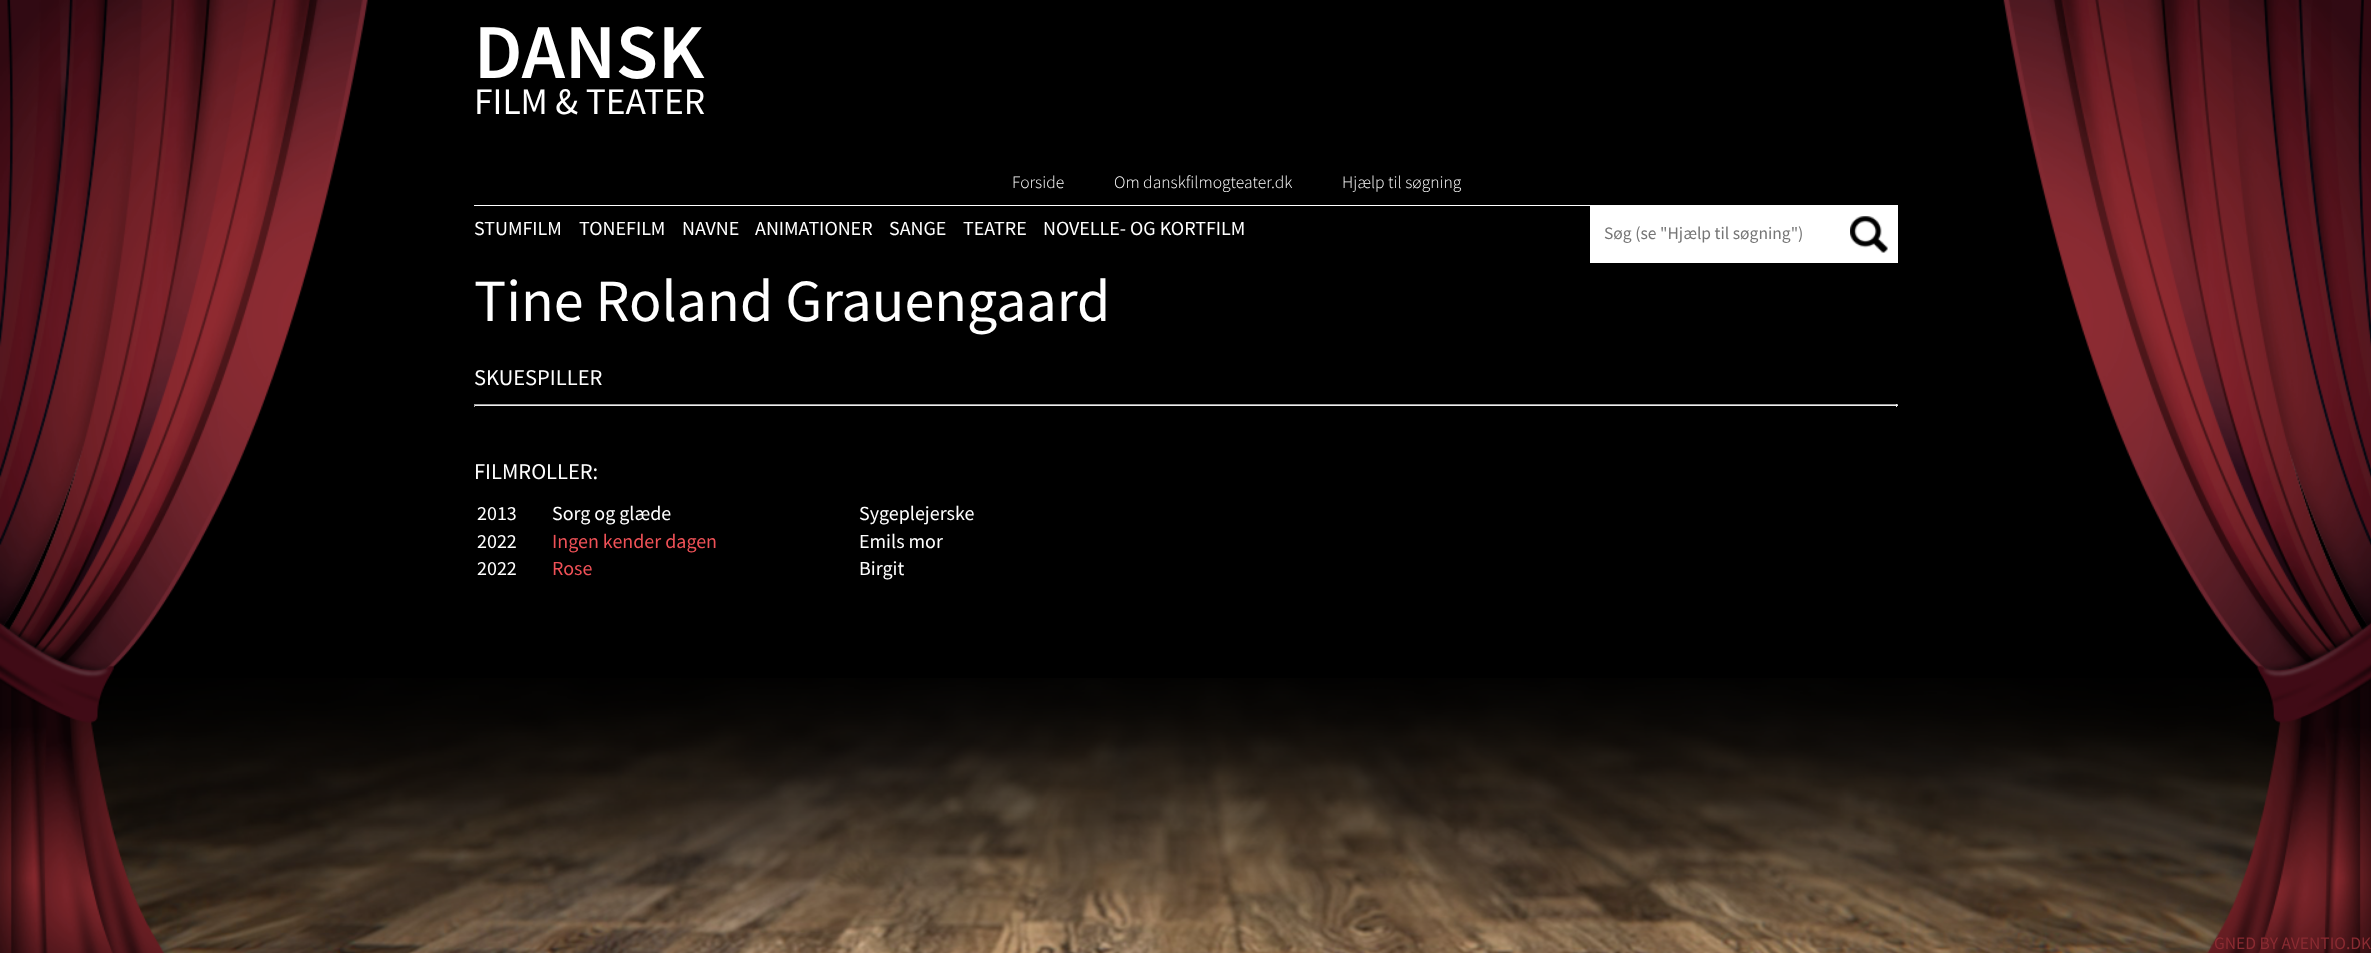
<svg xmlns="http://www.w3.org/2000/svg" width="2371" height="953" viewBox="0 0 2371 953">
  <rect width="100%" height="100%" fill="rgb(0,0,0)"/>
  <image x="91" y="678" width="2190" height="275" href="pic4.png"/>
  <image x="0" y="0" width="368" height="953" href="pic1.png"/>
  <rect x="474" y="205" width="1424" height="1" fill="rgb(255,255,255)"/>
  <text x="474" y="78" font-family="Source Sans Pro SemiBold" font-size="77.5" font-weight="600" fill="rgb(255,255,255)">DANSK</text>
  <text x="474" y="114" font-family="Source Sans Pro" font-size="37.5" fill="rgb(255,255,255)">FILM &amp; TEATER</text>
  <g font-family="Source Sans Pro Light" font-size="17.5" font-weight="300" fill="rgb(255,255,255)">
    <text x="1012" y="188">Forside</text>
    <text x="1114" y="188">Om danskfilmogteater.dk</text>
    <text x="1342" y="188">Hjælp til søgning</text>
  </g>
  <g font-family="Source Sans Pro" font-size="20" fill="rgb(255,255,255)">
    <text x="474" y="235">STUMFILM</text>
    <text x="579" y="235">TONEFILM</text>
    <text x="682" y="235">NAVNE</text>
    <text x="755" y="235">ANIMATIONER</text>
    <text x="889" y="235">SANGE</text>
    <text x="963" y="235">TEATRE</text>
    <text x="1043" y="235">NOVELLE- OG KORTFILM</text>
  </g>
  <rect x="1590" y="206" width="308" height="57" fill="rgb(255,255,255)"/>
  <text x="1604" y="239" font-family="Source Sans Pro" font-size="17.5" fill="rgb(117,117,117)">Søg (se "Hjælp til søgning")</text>
  <image x="1850" y="216" width="38" height="37" href="pic2.png"/>
  <image x="2003" y="0" width="368" height="953" href="pic3.png"/>
  <text x="474" y="321" font-family="Source Sans Pro" font-size="60" fill="rgb(255,255,255)">Tine Roland Grauengaard</text>
  <text x="474" y="385" font-family="Source Sans Pro" font-size="22.5" fill="rgb(255,255,255)">SKUESPILLER</text>
  <rect x="474" y="404" width="1424" height="1" fill="rgb(159,159,159)"/>
  <rect x="1896" y="404" width="1" height="3" fill="rgb(238,238,238)"/>
  <rect x="474" y="405" width="1424" height="1" fill="rgb(238,238,238)"/>
  <rect x="474" y="404" width="1" height="3" fill="rgb(159,159,159)"/>
  <text x="474" y="479" font-family="Source Sans Pro" font-size="22.5" fill="rgb(255,255,255)">FILMROLLER:</text>
  <g font-family="Source Sans Pro" font-size="20" fill="rgb(255,255,255)">
    <text x="477" y="520">2013</text>
    <text x="552" y="520">Sorg og glæde</text>
    <text x="859" y="520">Sygeplejerske</text>
    <text x="477" y="548">2022</text>
  </g>
  <text x="552" y="548" font-family="Source Sans Pro" font-size="20" fill="rgb(239,81,87)">Ingen kender dagen</text>
  <g font-family="Source Sans Pro" font-size="20" fill="rgb(255,255,255)">
    <text x="859" y="548">Emils mor</text>
    <text x="477" y="575">2022</text>
  </g>
  <text x="552" y="575" font-family="Source Sans Pro" font-size="20" fill="rgb(239,81,87)">Rose</text>
  <text x="859" y="575" font-family="Source Sans Pro" font-size="20" fill="rgb(255,255,255)">Birgit</text>
  <text x="2214" y="949" font-family="Source Sans Pro" font-size="17.5" fill="rgb(138,43,50)">GNED BY AVENTIO.DK</text>
</svg>
